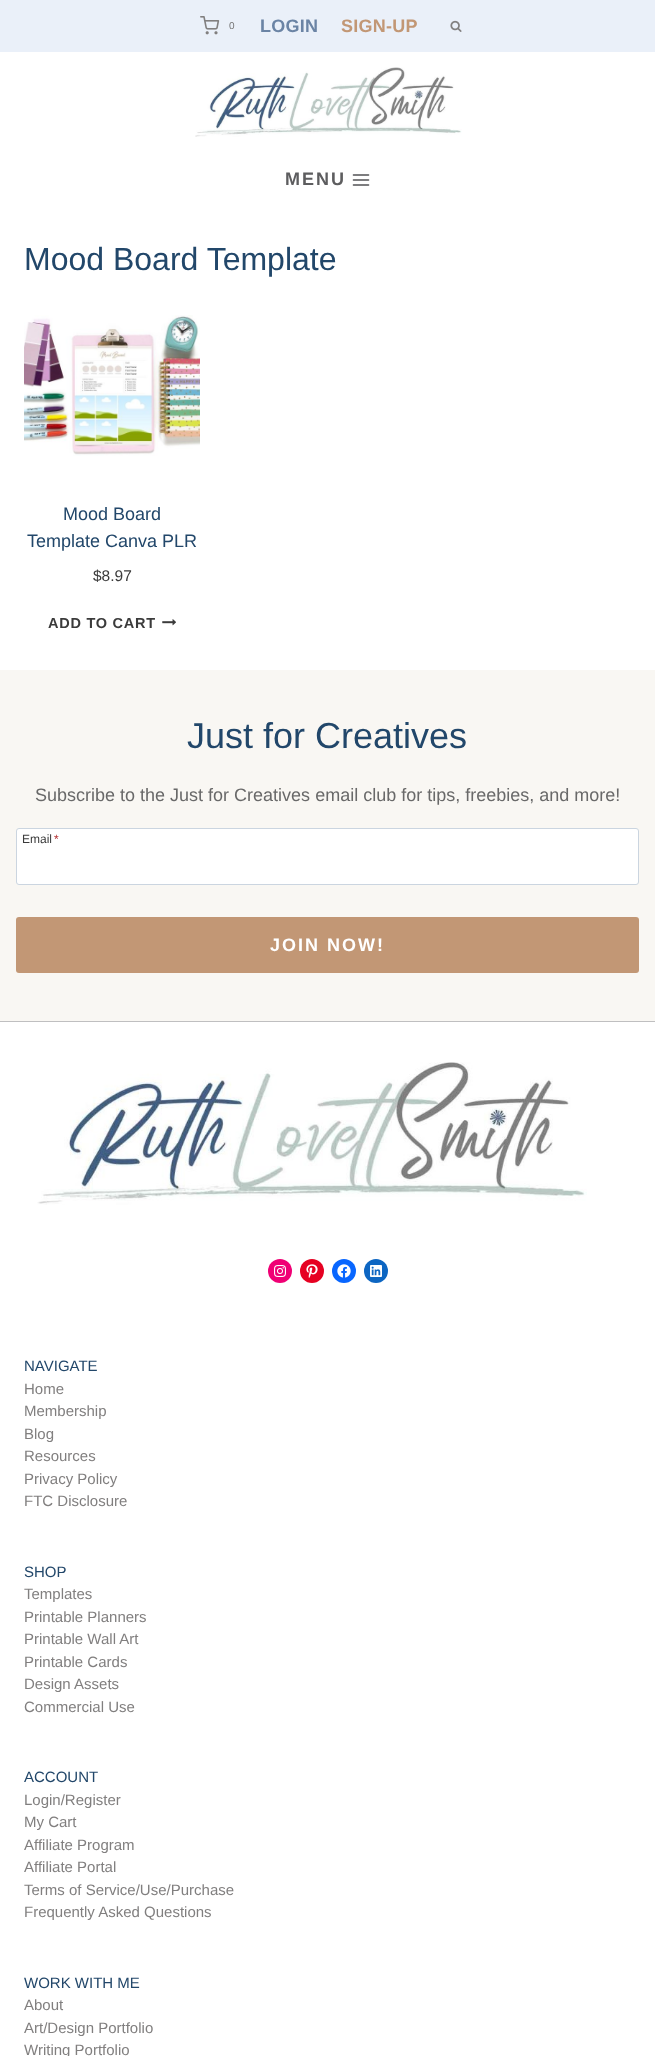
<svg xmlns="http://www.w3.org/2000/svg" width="655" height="2056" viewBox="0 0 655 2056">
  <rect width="100%" height="100%" fill="rgb(255,255,255)"/>
  <rect x="0" y="0" width="655" height="52" fill="rgb(234,240,249)"/>
  <image x="200" y="16" width="20" height="19" href="pic1.png"/>
  <text x="229" y="29" font-family="Liberation Sans" font-size="10" fill="rgb(117,117,117)">0</text>
  <text x="260" y="32" font-family="Liberation Sans" font-size="18" font-weight="bold" letter-spacing="0.25" fill="rgb(107,132,165)">LOGIN</text>
  <text x="341" y="32" font-family="Liberation Sans" font-size="18" font-weight="bold" letter-spacing="0.25" fill="rgb(194,151,117)">SIGN-UP</text>
  <image x="450" y="20" width="12" height="12" href="pic2.png"/>
  <image x="195" y="67" width="267" height="70" href="pic3.png"/>
  <text x="285" y="185" font-family="Liberation Sans" font-size="18" font-weight="bold" letter-spacing="2" fill="rgb(93,93,95)">MENU</text>
  <image x="352" y="174" width="18" height="12" href="pic4.png"/>
  <text x="24" y="270" font-family="Liberation Sans" font-size="32" fill="rgb(34,71,106)">Mood Board Template</text>
  <image x="24" y="315" width="176" height="141" href="pic5.png"/>
  <g font-family="Liberation Sans" font-size="18" fill="rgb(34,71,106)">
    <text x="63" y="520">Mood Board</text>
    <text x="27" y="547">Template Canva PLR</text>
  </g>
  <text x="93" y="581" font-family="Liberation Sans" font-size="15.5" fill="rgb(59,59,59)">$8.97</text>
  <text x="48" y="628" font-family="Liberation Sans" font-size="14.5" font-weight="bold" letter-spacing="0.75" fill="rgb(59,59,59)">ADD TO CART</text>
  <image x="162" y="619" width="14" height="7" href="pic6.png"/>
  <rect x="0" y="670" width="655" height="351" fill="rgb(249,247,243)"/>
  <text x="187" y="748" font-family="Liberation Sans" font-size="36" fill="rgb(34,71,106)">Just for Creatives</text>
  <text x="35" y="801" font-family="Liberation Sans" font-size="18" fill="rgb(105,105,105)">Subscribe to the Just for Creatives email club for tips, freebies, and more!</text>
  <rect x="16.5" y="828.5" width="622" height="56" rx="2.5" fill="rgb(255,255,255)" stroke="rgb(203,213,224)"/>
  <text x="22" y="843" font-family="Liberation Sans" font-size="12" fill="rgb(59,59,59)">Email</text>
  <text x="54" y="843" font-family="Liberation Sans" font-size="12" fill="rgb(179,45,46)">*</text>
  <rect x="16" y="917" width="623" height="56" rx="3" fill="rgb(194,151,117)"/>
  <text x="270" y="951" font-family="Liberation Sans" font-size="18" font-weight="bold" letter-spacing="2" fill="rgb(255,255,255)">JOIN NOW!</text>
  <rect x="0" y="1021" width="655" height="1" fill="rgb(191,191,192)"/>
  <image x="37" y="1062" width="550" height="143" href="pic7.png"/>
  <circle cx="280" cy="1271" r="12" fill="rgb(240,0,117)"/>
  <image x="274" y="1265" width="12" height="12" href="pic8.png"/>
  <circle cx="312" cy="1271" r="12" fill="rgb(230,1,34)"/>
  <image x="306" y="1264" width="12" height="14" href="pic9.png"/>
  <circle cx="344" cy="1271" r="12" fill="rgb(8,102,255)"/>
  <image x="337" y="1264" width="14" height="14" href="pic10.png"/>
  <circle cx="376" cy="1271" r="12" fill="rgb(13,102,194)"/>
  <image x="370" y="1265" width="12" height="12" href="pic11.png"/>
  <text x="24" y="1371" font-family="Liberation Sans" font-size="15" fill="rgb(34,71,106)">NAVIGATE</text>
  <g font-family="Liberation Sans" font-size="15" fill="rgb(129,127,127)">
    <text>
      <tspan x="24" y="1394">Home</tspan>
      <tspan x="24" y="1416">Membership</tspan>
      <tspan x="24" y="1439">Blog</tspan>
      <tspan x="24" y="1461">Resources</tspan>
      <tspan x="24" y="1484">Privacy Policy</tspan>
      <tspan x="24" y="1506">FTC Disclosure</tspan>
    </text>
  </g>
  <text x="24" y="1577" font-family="Liberation Sans" font-size="15" fill="rgb(34,71,106)">SHOP</text>
  <g font-family="Liberation Sans" font-size="15" fill="rgb(129,127,127)">
    <text>
      <tspan x="24" y="1599">Templates</tspan>
      <tspan x="24" y="1622">Printable Planners</tspan>
      <tspan x="24" y="1644">Printable Wall Art</tspan>
      <tspan x="24" y="1667">Printable Cards</tspan>
      <tspan x="24" y="1689">Design Assets</tspan>
      <tspan x="24" y="1712">Commercial Use</tspan>
    </text>
  </g>
  <text x="24" y="1782" font-family="Liberation Sans" font-size="15" fill="rgb(34,71,106)">ACCOUNT</text>
  <g font-family="Liberation Sans" font-size="15" fill="rgb(129,127,127)">
    <text>
      <tspan x="24" y="1805">Login/Register</tspan>
      <tspan x="24" y="1827">My Cart</tspan>
      <tspan x="24" y="1850">Affiliate Program</tspan>
      <tspan x="24" y="1872">Affiliate Portal</tspan>
      <tspan x="24" y="1895">Terms of Service/Use/Purchase</tspan>
      <tspan x="24" y="1917">Frequently Asked Questions</tspan>
    </text>
  </g>
  <text x="24" y="1988" font-family="Liberation Sans" font-size="15" fill="rgb(34,71,106)">WORK WITH ME</text>
  <g font-family="Liberation Sans" font-size="15" fill="rgb(129,127,127)">
    <text>
      <tspan x="24" y="2010">About</tspan>
      <tspan x="24" y="2033">Art/Design Portfolio</tspan>
      <tspan x="24" y="2055">Writing Portfolio</tspan>
    </text>
  </g>
</svg>
